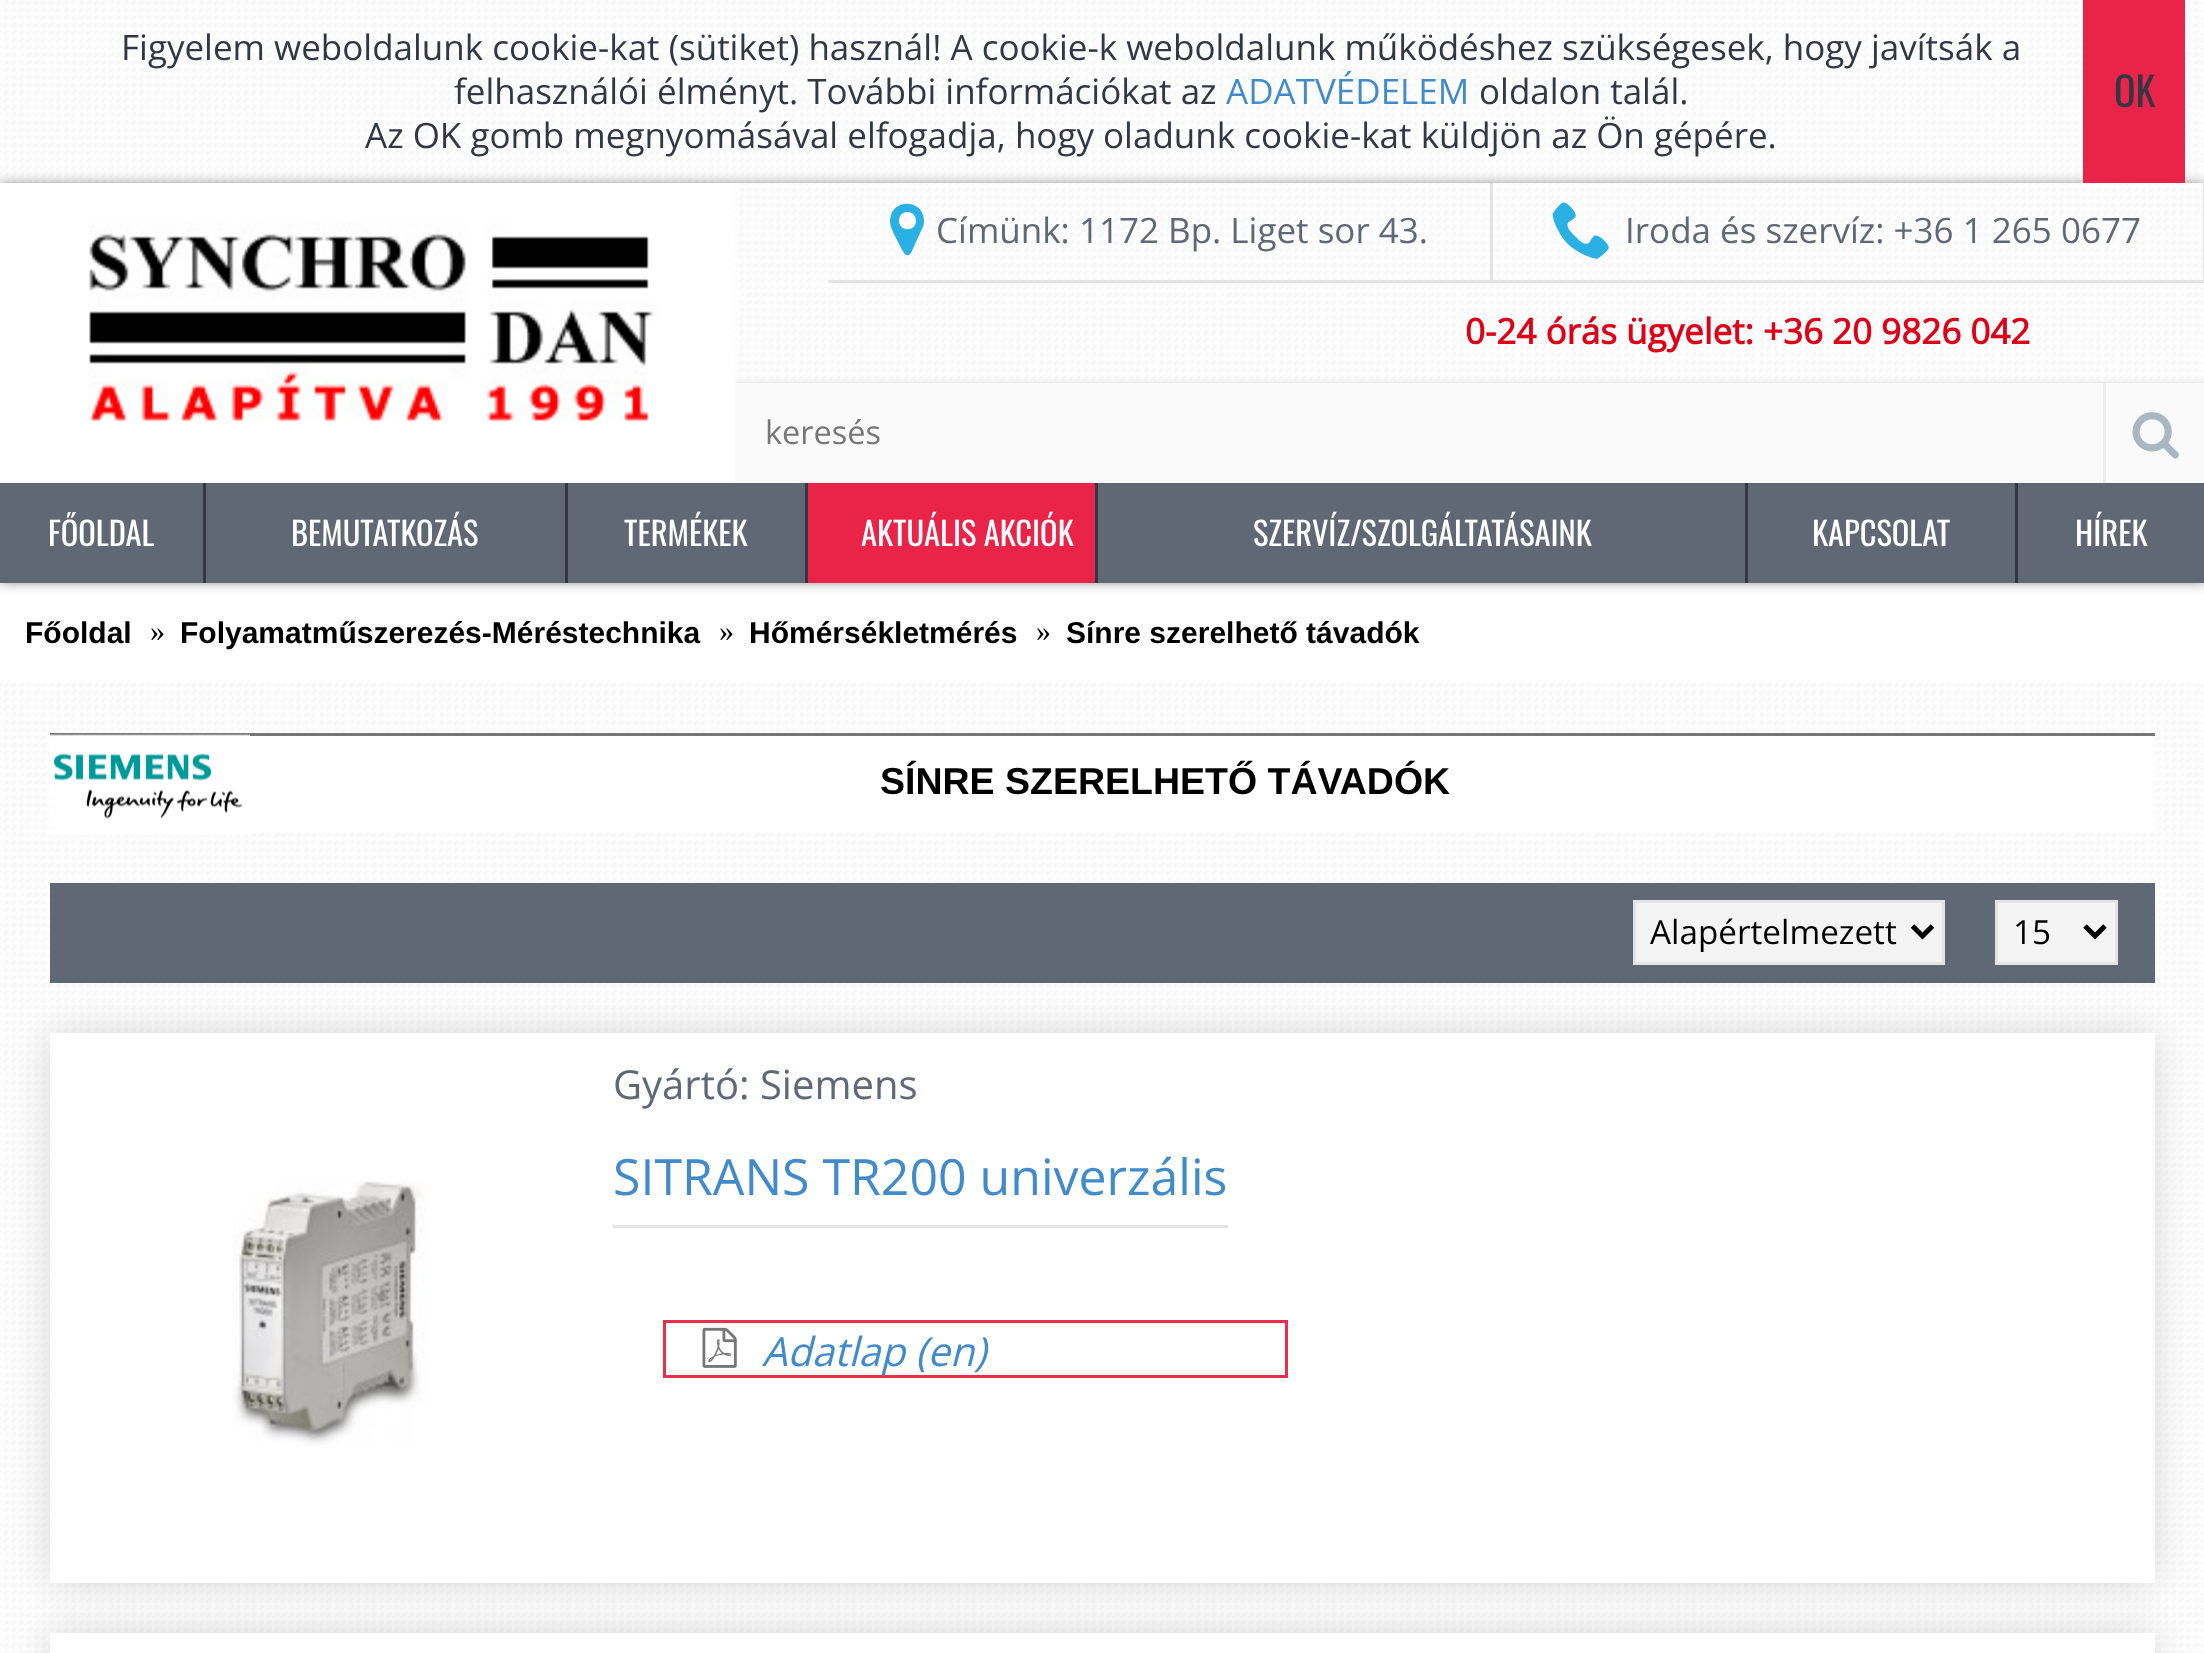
<svg xmlns="http://www.w3.org/2000/svg" width="2204" height="1653" viewBox="0 0 2204 1653">
  <defs>
    <clipPath id="clip1"><path d="M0 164H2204V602H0ZM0 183H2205V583H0Z" clip-rule="evenodd"/></clipPath>
  </defs>
  <rect width="100%" height="100%" fill="rgb(255,255,255)"/>
  <image x="0" y="0" width="2204" height="1653" href="pic1.png"/>
  <g font-family="Open Sans" font-size="35" fill="rgb(51,55,69)">
    <text x="121" y="60">Figyelem weboldalunk cookie-kat (sütiket) használ! A cookie-k weboldalunk működéshez szükségesek, hogy javítsák a</text>
    <text x="454" y="104">felhasználói élményt. További információkat az</text>
  </g>
  <text x="1226" y="104" font-family="Open Sans" font-size="35" fill="rgb(66,139,202)">ADATVÉDELEM</text>
  <g font-family="Open Sans" font-size="35" fill="rgb(51,55,69)">
    <text x="1479" y="104">oldalon talál.</text>
    <text x="365" y="148">Az OK gomb megnyomásával elfogadja, hogy oladunk cookie-kat küldjön az Ön gépére.</text>
  </g>
  <rect x="0" y="585" width="2204" height="98" fill="rgb(255,255,255)"/>
  <g clip-path="url(#clip1)">
    <rect x="0" y="183" width="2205" height="400" fill="rgba(0,0,0,0.4)" filter="blur(6px)"/>
  </g>
  <rect x="2083" y="0" width="102" height="183" fill="rgb(234,35,73)"/>
  <text x="2114" y="107" font-family="Oswald" font-size="40" fill="rgb(51,55,69)">OK</text>
  <rect x="735" y="385" width="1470" height="100" fill="rgba(0,0,0,0.25)" filter="blur(4px)"/>
  <rect x="0" y="183" width="735" height="300" fill="rgb(255,255,255)"/>
  <image x="88" y="221" width="569" height="201" href="pic2.png"/>
  <rect x="1490" y="183" width="3" height="100" fill="rgb(228,228,228)"/>
  <rect x="828" y="280" width="665" height="3" fill="rgb(228,228,228)"/>
  <path d="M916 221C916 209 899 209 899 221C899 232 916 232 916 221ZM924 221C924 225 923 227 921 231L911 253C906 259 903 251 901 248L897 240C894 234 890 227 890 221C890 198 924 198 924 221Z" fill="rgb(43,176,227)"/>
  <text x="936" y="243" font-family="Open Sans" font-size="35" fill="rgb(95,104,116)">Címünk: 1172 Bp. Liget sor 43.</text>
  <rect x="2203" y="183" width="1" height="100" fill="rgb(228,228,228)"/>
  <rect x="1493" y="280" width="711" height="3" fill="rgb(228,228,228)"/>
  <image x="1552" y="202" width="57" height="57" href="pic3.png"/>
  <text x="1625" y="243" font-family="Open Sans" font-size="35" fill="rgb(95,104,116)">Iroda és szervíz: +36 1 265 0677</text>
  <text x="1465" y="344" font-family="Open Sans" font-size="35" font-weight="bold" fill="rgb(221,0,23)">0-24 órás ügyelet: +36 20 9826 042</text>
  <rect x="735" y="383" width="1469" height="100" fill="rgb(250,250,250)"/>
  <text x="765" y="444" font-family="Open Sans" font-size="32.5" fill="rgb(119,119,119)">keresés</text>
  <rect x="2103" y="383" width="3" height="100" fill="rgb(238,238,238)"/>
  <image x="2132" y="412" width="47" height="47" href="pic4.png"/>
  <rect x="0" y="483" width="2204" height="100" fill="rgb(95,104,116)"/>
  <text x="48" y="546" font-family="Oswald" font-size="32.5" fill="rgb(255,255,255)">FŐOLDAL</text>
  <rect x="203" y="483" width="3" height="100" fill="rgb(51,55,69)"/>
  <text x="291" y="546" font-family="Oswald" font-size="32.5" fill="rgb(255,255,255)">BEMUTATKOZÁS</text>
  <rect x="565" y="483" width="3" height="100" fill="rgb(51,55,69)"/>
  <text x="624" y="546" font-family="Oswald" font-size="32.5" fill="rgb(255,255,255)">TERMÉKEK</text>
  <rect x="808" y="483" width="287" height="100" fill="rgb(234,35,73)"/>
  <rect x="805" y="483" width="3" height="100" fill="rgb(51,55,69)"/>
  <text x="861" y="546" font-family="Oswald" font-size="32.5" fill="rgb(255,255,255)">AKTUÁLIS AKCIÓK</text>
  <rect x="1095" y="483" width="3" height="100" fill="rgb(51,55,69)"/>
  <text x="1253" y="546" font-family="Oswald" font-size="32.5" fill="rgb(255,255,255)">SZERVÍZ/SZOLGÁLTATÁSAINK</text>
  <rect x="1745" y="483" width="3" height="100" fill="rgb(51,55,69)"/>
  <text x="1812" y="546" font-family="Oswald" font-size="32.5" fill="rgb(255,255,255)">KAPCSOLAT</text>
  <rect x="2015" y="483" width="3" height="100" fill="rgb(51,55,69)"/>
  <text x="2075" y="546" font-family="Oswald" font-size="32.5" fill="rgb(255,255,255)">HÍREK</text>
  <text x="25" y="643" font-family="Liberation Sans" font-size="30" font-weight="bold" fill="rgb(0,0,0)">Főoldal</text>
  <text x="150" y="641" font-family="Liberation Serif" font-size="30" fill="rgb(0,0,0)">»</text>
  <text x="180" y="643" font-family="Liberation Sans" font-size="30" font-weight="bold" fill="rgb(0,0,0)">Folyamatműszerezés-Méréstechnika</text>
  <text x="719" y="641" font-family="Liberation Serif" font-size="30" fill="rgb(0,0,0)">»</text>
  <text x="749" y="643" font-family="Liberation Sans" font-size="30" font-weight="bold" fill="rgb(0,0,0)">Hőmérsékletmérés</text>
  <text x="1036" y="641" font-family="Liberation Serif" font-size="30" fill="rgb(0,0,0)">»</text>
  <text x="1066" y="643" font-family="Liberation Sans" font-size="30" font-weight="bold" fill="rgb(0,0,0)">Sínre szerelhető távadók</text>
  <rect x="50" y="733" width="2105" height="3" fill="rgb(119,119,119)"/>
  <image x="50" y="734" width="200" height="101" href="pic5.png"/>
  <rect x="251" y="736" width="1903" height="97" fill="rgb(255,255,255)"/>
  <text x="880" y="794" font-family="Liberation Sans" font-size="37.5" font-weight="bold" fill="rgb(0,0,0)">SÍNRE SZERELHETŐ TÁVADÓK</text>
  <rect x="50" y="883" width="2105" height="100" fill="rgb(95,104,116)"/>
  <rect x="1634.5" y="901.5" width="309" height="62" fill="rgb(244,244,244)" stroke="rgb(228,228,228)" stroke-width="3"/>
  <path d="M1912.5 926L1922.5 936L1932.5 926" fill="none" stroke="rgb(0,0,0)" stroke-width="5"/>
  <text x="1650" y="944" font-family="Open Sans" font-size="33.25" fill="rgb(0,0,0)">Alapértelmezett</text>
  <rect x="1996.5" y="901.5" width="120" height="62" fill="rgb(244,244,244)" stroke="rgb(228,228,228)" stroke-width="3"/>
  <path d="M2085 926L2095 936L2105 926" fill="none" stroke="rgb(0,0,0)" stroke-width="5"/>
  <text x="2013" y="944" font-family="Open Sans" font-size="33.25" fill="rgb(0,0,0)">15</text>
  <rect x="50" y="1033" width="2105" height="550" fill="rgba(0,0,0,0.15)" filter="blur(19px)"/>
  <rect x="50" y="1033" width="2105" height="550" fill="rgb(255,255,255)"/>
  <image x="233" y="1181" width="193" height="264" href="pic6.png"/>
  <text x="613" y="1099" font-family="Open Sans" font-size="40" fill="rgb(95,104,116)">Gyártó: Siemens</text>
  <rect x="613" y="1225" width="615" height="3" fill="rgb(228,228,228)"/>
  <text x="613" y="1195" font-family="Open Sans" font-size="50" fill="rgb(66,139,202)">SITRANS TR200 univerzális</text>
  <rect x="664.5" y="1321.5" width="622" height="55" fill="none" stroke="rgb(234,46,73)" stroke-width="3"/>
  <image x="702" y="1327" width="35" height="41" href="pic7.png"/>
  <text x="762" y="1366" font-family="Open Sans" font-size="40" font-style="italic" fill="rgb(66,139,202)">Adatlap (en)</text>
  <rect x="50" y="1633" width="2105" height="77" fill="rgba(0,0,0,0.15)" filter="blur(19px)"/>
  <rect x="50" y="1633" width="2105" height="20" fill="rgb(255,255,255)"/>
</svg>
